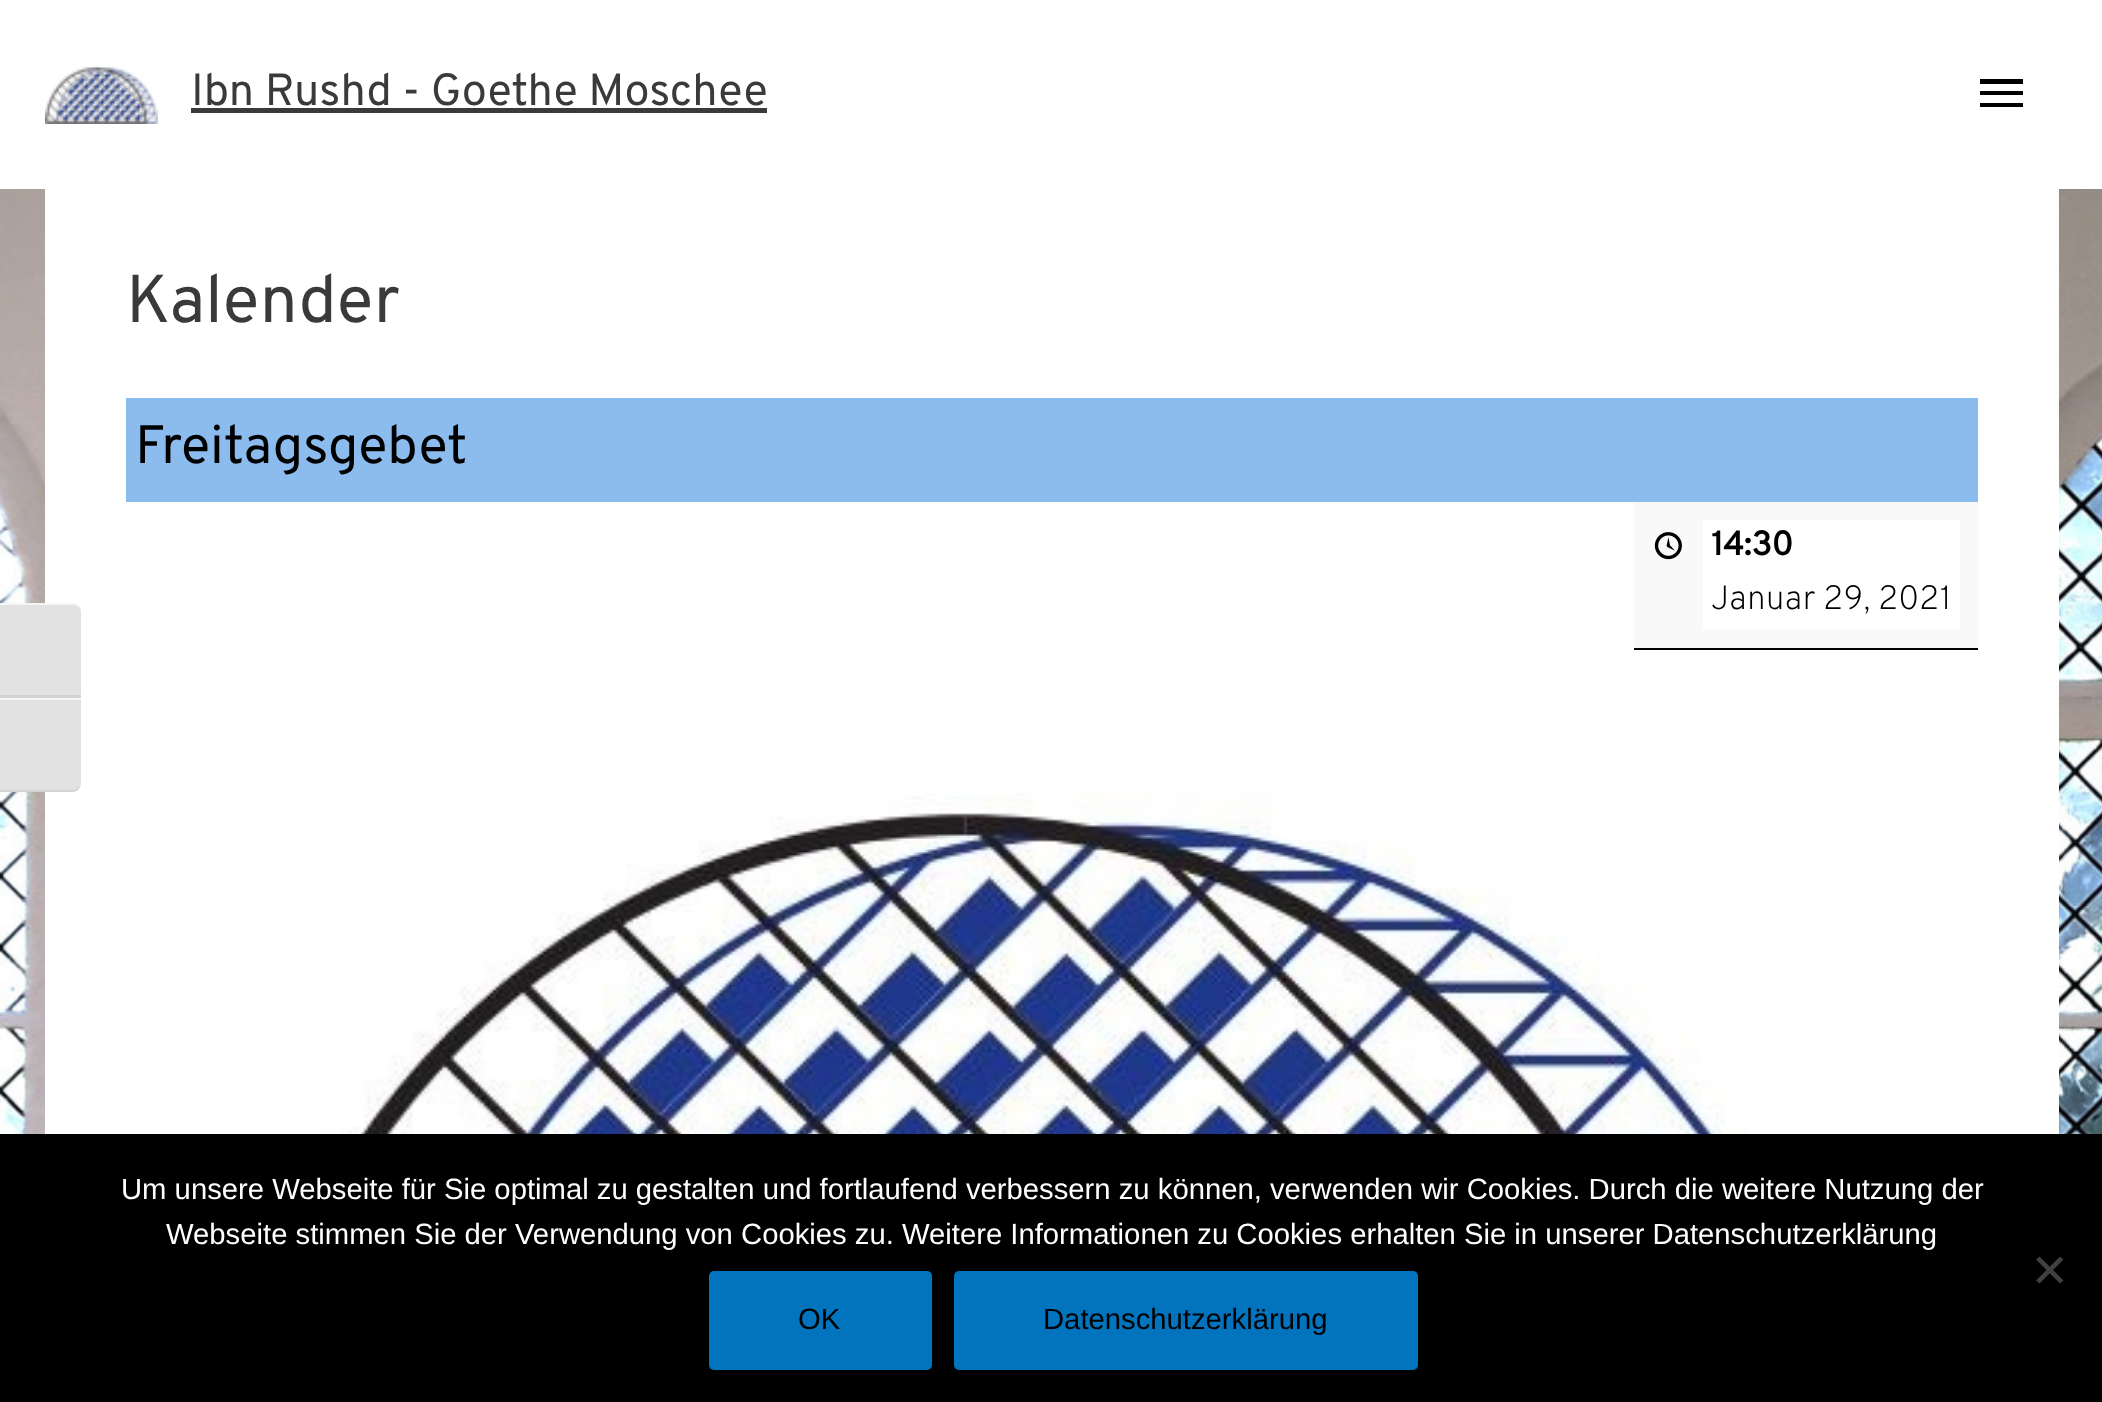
<svg xmlns="http://www.w3.org/2000/svg" width="2102" height="1402" viewBox="0 0 2102 1402">
  <rect width="100%" height="100%" fill="rgb(255,255,255)"/>
  <image x="0" y="189" width="2102" height="945" href="pic1.png"/>
  <image x="45" y="65" width="113" height="59" href="pic2.png"/>
  <text x="191" y="105" font-family="Overpass" font-size="45" fill="rgb(58,58,58)">Ibn Rushd - Goethe Moschee</text>
  <rect x="191" y="108" width="576" height="5" fill="rgb(58,58,58)"/>
  <path d="M1980 79H2023V84H1980ZM1980 95V91H2023V95ZM1980 107V103H2023V107Z" fill="rgb(0,0,0)"/>
  <rect x="45" y="189" width="2014" height="945" fill="rgb(255,255,255)"/>
  <text x="126" y="322" font-family="Overpass" font-size="67.5" fill="rgb(58,58,58)">Kalender</text>
  <rect x="126" y="398" width="1852" height="104" fill="rgb(139,188,237)"/>
  <text x="135" y="463" font-family="Overpass" font-size="54" fill="rgb(0,0,0)">Freitagsgebet</text>
  <rect x="1634" y="502" width="344" height="146" fill="rgb(249,249,249)"/>
  <rect x="1634" y="648" width="344" height="2" fill="rgb(0,0,0)"/>
  <image x="1654" y="532" width="28" height="28" href="pic3.png"/>
  <rect x="1703" y="520" width="257" height="110" fill="rgb(255,255,255)"/>
  <text x="1711" y="555" font-family="Overpass" font-size="33.75" font-weight="bold" fill="rgb(0,0,0)">14:30</text>
  <text x="1711" y="609" font-family="Overpass" font-size="33.75" font-weight="200" fill="rgb(0,0,0)">Januar 29, 2021</text>
  <image x="222" y="793" width="1622" height="341" href="pic4.png"/>
  <path d="M0 603H72C77 603 81 607 81 612V698H0Z" fill="rgb(226,226,226)"/>
  <path d="M0 603V605H72C77 605 81 608 81 612C81 607 77 603 72 603Z" fill="rgb(245,245,245)"/>
  <rect x="0" y="695" width="81" height="3" fill="rgb(210,210,210)"/>
  <path d="M0 698H81V783C81 788 77 792 72 792H0Z" fill="rgb(226,226,226)"/>
  <rect x="0" y="698" width="81" height="2" fill="rgb(245,245,245)"/>
  <path d="M0 790V792H72C77 792 81 788 81 783C81 787 77 790 72 790Z" fill="rgb(210,210,210)"/>
  <rect x="0" y="1134" width="2102" height="268" fill="rgb(0,0,0)"/>
  <g font-family="Liberation Sans" font-size="29.25" fill="rgb(255,255,255)">
    <text x="121" y="1199">Um unsere Webseite für Sie optimal zu gestalten und fortlaufend verbessern zu können, verwenden wir Cookies. Durch die weitere Nutzung der</text>
    <text x="166" y="1244">Webseite stimmen Sie der Verwendung von Cookies zu. Weitere Informationen zu Cookies erhalten Sie in unserer Datenschutzerklärung</text>
  </g>
  <path d="M2060 1256.5L2063.5 1259.5L2039.5 1283.5L2036 1280.5Z" fill="rgb(64,64,64)"/>
  <path d="M2036 1259.5L2039.5 1256.5L2063.5 1280.5L2060 1283.5Z" fill="rgb(64,64,64)"/>
  <rect x="709" y="1271" width="223" height="99" rx="5" fill="rgb(2,116,190)"/>
  <text x="798" y="1329" font-family="Liberation Sans" font-size="29.25" fill="rgb(0,0,0)">OK</text>
  <rect x="954" y="1271" width="464" height="99" rx="5" fill="rgb(2,116,190)"/>
  <text x="1043" y="1329" font-family="Liberation Sans" font-size="29.25" fill="rgb(0,0,0)">Datenschutzerklärung</text>
</svg>
